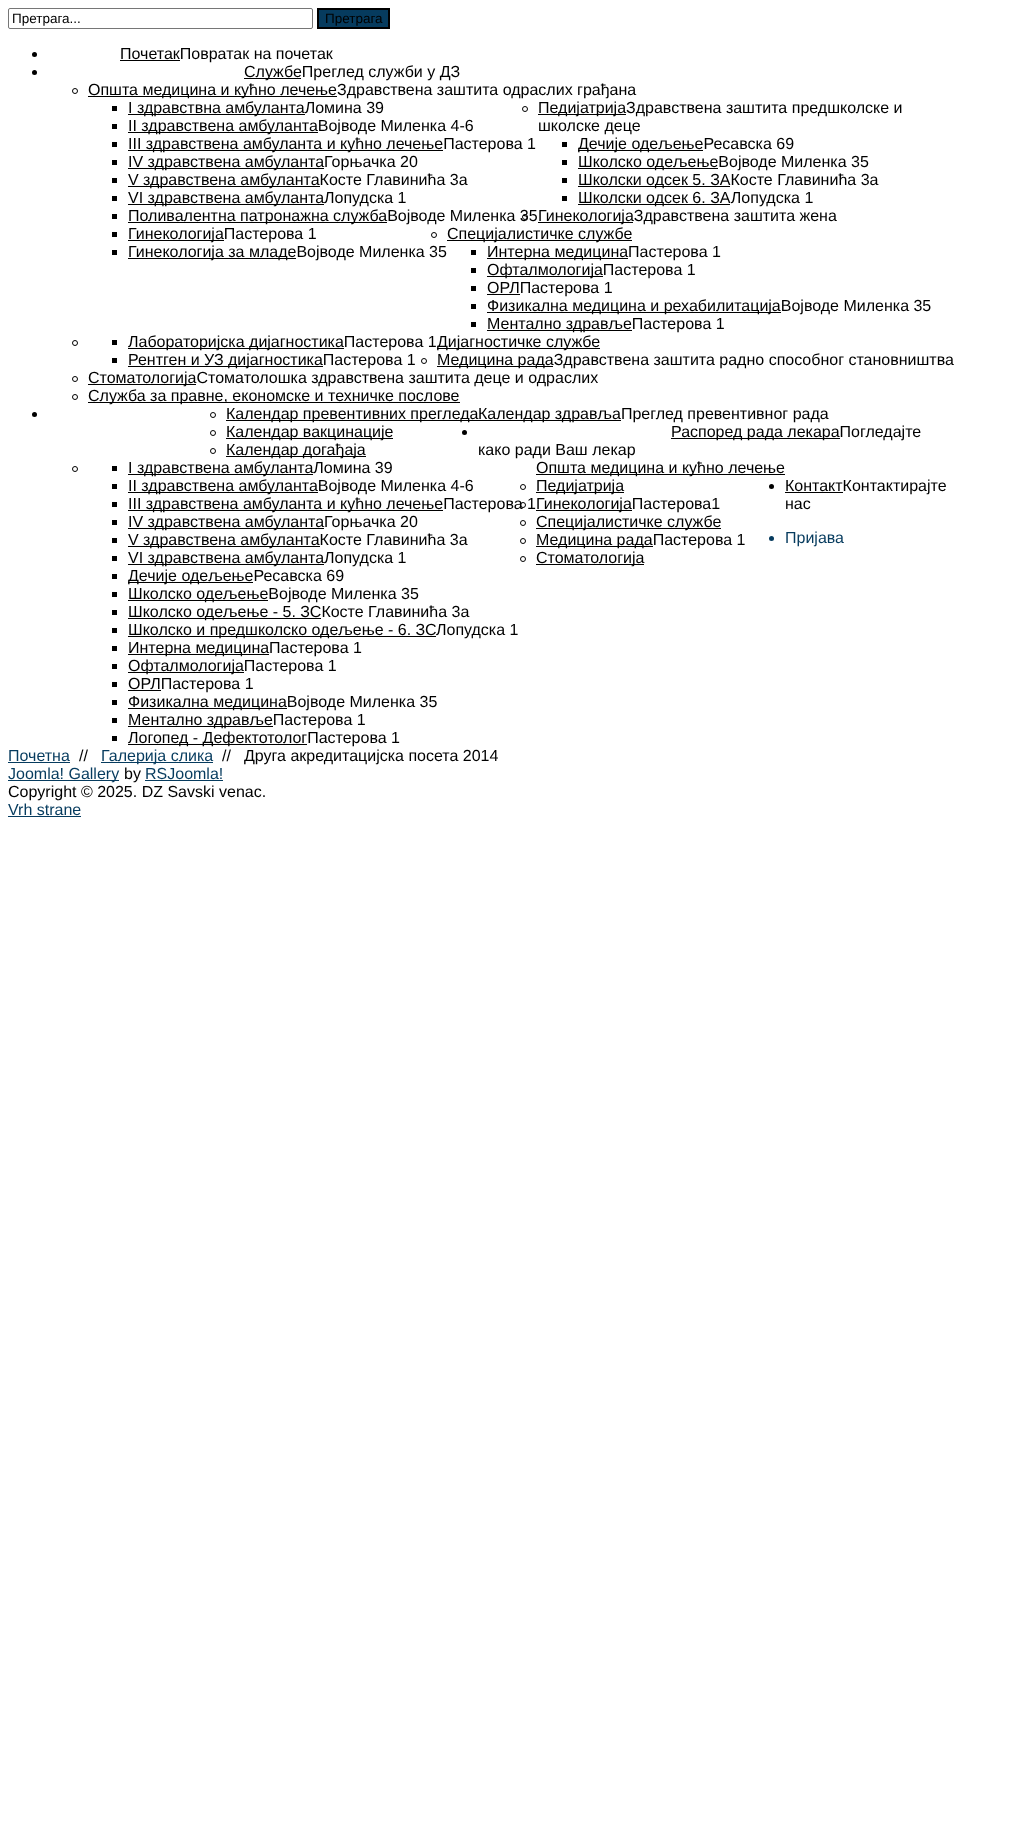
<svg xmlns="http://www.w3.org/2000/svg" width="1033" height="1822" viewBox="0 0 1033 1822">
  <rect width="100%" height="100%" fill="rgb(255,255,255)"/>
  <rect x="8.5" y="8.5" width="304" height="20" rx="1.5" fill="none" stroke="rgb(118,118,118)"/>
  <text x="12" y="23" font-family="Liberation Sans" font-size="13.5" fill="rgb(0,0,0)">Претрага...</text>
  <rect x="318" y="9" width="71" height="19" fill="rgb(6,59,94)" stroke="rgb(0,0,0)" stroke-width="2"/>
  <text x="325" y="23" font-family="Liberation Sans" font-size="13.5" fill="rgb(0,0,0)">Претрага</text>
  <circle cx="34.5" cy="54.5" r="2.5" fill="rgb(0,0,0)"/>
  <rect x="120" y="60" width="60" height="1" fill="rgb(0,0,0)"/>
  <text x="120" y="59" font-family="Liberation Sans" font-size="16" fill="rgb(0,0,0)">ПочетакПовратак на почетак</text>
  <circle cx="34.5" cy="72.5" r="2.5" fill="rgb(0,0,0)"/>
  <rect x="244" y="78" width="57" height="1" fill="rgb(0,0,0)"/>
  <text x="244" y="77" font-family="Liberation Sans" font-size="16" fill="rgb(0,0,0)">СлужбеПреглед служби у ДЗ</text>
  <circle cx="75" cy="91" r="2.5" fill="none" stroke="rgb(0,0,0)"/>
  <rect x="88" y="96" width="249" height="1" fill="rgb(0,0,0)"/>
  <text x="88" y="95" font-family="Liberation Sans" font-size="16" fill="rgb(0,0,0)">Општа медицина и кућно лечењеЗдравствена заштита одраслих грађана</text>
  <rect x="112" y="106" width="5" height="5" fill="rgb(0,0,0)"/>
  <rect x="128" y="114" width="177" height="1" fill="rgb(0,0,0)"/>
  <text x="128" y="113" font-family="Liberation Sans" font-size="16" fill="rgb(0,0,0)">I здравствна амбулантаЛомина 39</text>
  <rect x="112" y="124" width="5" height="5" fill="rgb(0,0,0)"/>
  <rect x="128" y="132" width="190" height="1" fill="rgb(0,0,0)"/>
  <text x="128" y="131" font-family="Liberation Sans" font-size="16" fill="rgb(0,0,0)">II здравствена амбулантаВојводе Миленка 4-6</text>
  <rect x="112" y="142" width="5" height="5" fill="rgb(0,0,0)"/>
  <rect x="128" y="150" width="315" height="1" fill="rgb(0,0,0)"/>
  <text x="128" y="149" font-family="Liberation Sans" font-size="16" fill="rgb(0,0,0)">III здравствена амбуланта и кућно лечењеПастерова 1</text>
  <rect x="112" y="160" width="5" height="5" fill="rgb(0,0,0)"/>
  <rect x="128" y="168" width="196" height="1" fill="rgb(0,0,0)"/>
  <text x="128" y="167" font-family="Liberation Sans" font-size="16" fill="rgb(0,0,0)">IV здравствена амбулантаГорњачка 20</text>
  <rect x="112" y="178" width="5" height="5" fill="rgb(0,0,0)"/>
  <rect x="128" y="186" width="192" height="1" fill="rgb(0,0,0)"/>
  <text x="128" y="185" font-family="Liberation Sans" font-size="16" fill="rgb(0,0,0)">V здравствена амбулантаКосте Главинића 3a</text>
  <rect x="112" y="196" width="5" height="5" fill="rgb(0,0,0)"/>
  <rect x="128" y="204" width="196" height="1" fill="rgb(0,0,0)"/>
  <text x="128" y="203" font-family="Liberation Sans" font-size="16" fill="rgb(0,0,0)">VI здравствена амбулантаЛопудска 1</text>
  <rect x="112" y="214" width="5" height="5" fill="rgb(0,0,0)"/>
  <rect x="128" y="222" width="259" height="1" fill="rgb(0,0,0)"/>
  <text x="128" y="221" font-family="Liberation Sans" font-size="16" fill="rgb(0,0,0)">Поливалентна патронажна службаВојводе Миленка 35</text>
  <circle cx="525" cy="109" r="2.5" fill="none" stroke="rgb(0,0,0)"/>
  <rect x="538" y="114" width="88" height="1" fill="rgb(0,0,0)"/>
  <g font-family="Liberation Sans" font-size="16" fill="rgb(0,0,0)">
    <text>
      <tspan x="538" y="113">ПедијатријаЗдравствена заштита предшколске и</tspan>
      <tspan x="538" y="131">школске деце</tspan>
    </text>
  </g>
  <rect x="562" y="142" width="5" height="5" fill="rgb(0,0,0)"/>
  <rect x="578" y="150" width="125" height="1" fill="rgb(0,0,0)"/>
  <text x="578" y="149" font-family="Liberation Sans" font-size="16" fill="rgb(0,0,0)">Дечије одељењеРесавска 69</text>
  <rect x="562" y="160" width="5" height="5" fill="rgb(0,0,0)"/>
  <rect x="578" y="168" width="140" height="1" fill="rgb(0,0,0)"/>
  <text x="578" y="167" font-family="Liberation Sans" font-size="16" fill="rgb(0,0,0)">Школско одељењеВојводе Миленка 35</text>
  <rect x="562" y="178" width="5" height="5" fill="rgb(0,0,0)"/>
  <rect x="578" y="186" width="152" height="1" fill="rgb(0,0,0)"/>
  <text x="578" y="185" font-family="Liberation Sans" font-size="16" fill="rgb(0,0,0)">Школски одсек 5. ЗАКосте Главинића 3a</text>
  <rect x="562" y="196" width="5" height="5" fill="rgb(0,0,0)"/>
  <rect x="578" y="204" width="152" height="1" fill="rgb(0,0,0)"/>
  <text x="578" y="203" font-family="Liberation Sans" font-size="16" fill="rgb(0,0,0)">Школски одсек 6. ЗАЛопудска 1</text>
  <circle cx="525" cy="217" r="2.5" fill="none" stroke="rgb(0,0,0)"/>
  <rect x="538" y="222" width="95" height="1" fill="rgb(0,0,0)"/>
  <text x="538" y="221" font-family="Liberation Sans" font-size="16" fill="rgb(0,0,0)">ГинекологијаЗдравствена заштита жена</text>
  <rect x="112" y="232" width="5" height="5" fill="rgb(0,0,0)"/>
  <rect x="128" y="240" width="96" height="1" fill="rgb(0,0,0)"/>
  <text x="128" y="239" font-family="Liberation Sans" font-size="16" fill="rgb(0,0,0)">ГинекологијаПастерова 1</text>
  <rect x="112" y="250" width="5" height="5" fill="rgb(0,0,0)"/>
  <rect x="128" y="258" width="168" height="1" fill="rgb(0,0,0)"/>
  <text x="128" y="257" font-family="Liberation Sans" font-size="16" fill="rgb(0,0,0)">Гинекологија за младеВојводе Миленка 35</text>
  <circle cx="434" cy="235" r="2.5" fill="none" stroke="rgb(0,0,0)"/>
  <rect x="447" y="240" width="185" height="1" fill="rgb(0,0,0)"/>
  <text x="447" y="239" font-family="Liberation Sans" font-size="16" fill="rgb(0,0,0)">Специјалистичке службе</text>
  <rect x="471" y="250" width="5" height="5" fill="rgb(0,0,0)"/>
  <rect x="487" y="258" width="141" height="1" fill="rgb(0,0,0)"/>
  <text x="487" y="257" font-family="Liberation Sans" font-size="16" fill="rgb(0,0,0)">Интерна медицинаПастерова 1</text>
  <rect x="471" y="268" width="5" height="5" fill="rgb(0,0,0)"/>
  <rect x="487" y="276" width="116" height="1" fill="rgb(0,0,0)"/>
  <text x="487" y="275" font-family="Liberation Sans" font-size="16" fill="rgb(0,0,0)">ОфталмологијаПастерова 1</text>
  <rect x="471" y="286" width="5" height="5" fill="rgb(0,0,0)"/>
  <rect x="487" y="294" width="33" height="1" fill="rgb(0,0,0)"/>
  <text x="487" y="293" font-family="Liberation Sans" font-size="16" fill="rgb(0,0,0)">ОРЛПастерова 1</text>
  <rect x="471" y="304" width="5" height="5" fill="rgb(0,0,0)"/>
  <rect x="487" y="312" width="294" height="1" fill="rgb(0,0,0)"/>
  <text x="487" y="311" font-family="Liberation Sans" font-size="16" fill="rgb(0,0,0)">Физикална медицина и рехабилитацијаВојводе Миленка 35</text>
  <rect x="471" y="322" width="5" height="5" fill="rgb(0,0,0)"/>
  <rect x="487" y="330" width="145" height="1" fill="rgb(0,0,0)"/>
  <text x="487" y="329" font-family="Liberation Sans" font-size="16" fill="rgb(0,0,0)">Ментално здрављеПастерова 1</text>
  <circle cx="75" cy="343" r="2.5" fill="none" stroke="rgb(0,0,0)"/>
  <rect x="112" y="340" width="5" height="5" fill="rgb(0,0,0)"/>
  <rect x="128" y="348" width="216" height="1" fill="rgb(0,0,0)"/>
  <text x="128" y="347" font-family="Liberation Sans" font-size="16" fill="rgb(0,0,0)">Лабораторијска дијагностикаПастерова 1</text>
  <rect x="112" y="358" width="5" height="5" fill="rgb(0,0,0)"/>
  <rect x="128" y="366" width="195" height="1" fill="rgb(0,0,0)"/>
  <text x="128" y="365" font-family="Liberation Sans" font-size="16" fill="rgb(0,0,0)">Рентген и УЗ дијагностикаПастерова 1</text>
  <rect x="437" y="348" width="163" height="1" fill="rgb(0,0,0)"/>
  <text x="437" y="347" font-family="Liberation Sans" font-size="16" fill="rgb(0,0,0)">Дијагностичке службе</text>
  <circle cx="424" cy="361" r="2.5" fill="none" stroke="rgb(0,0,0)"/>
  <rect x="437" y="366" width="116" height="1" fill="rgb(0,0,0)"/>
  <text x="437" y="365" font-family="Liberation Sans" font-size="16" fill="rgb(0,0,0)">Медицина радаЗдравствена заштита радно способног становништва</text>
  <circle cx="75" cy="379" r="2.5" fill="none" stroke="rgb(0,0,0)"/>
  <rect x="88" y="384" width="108" height="1" fill="rgb(0,0,0)"/>
  <text x="88" y="383" font-family="Liberation Sans" font-size="16" fill="rgb(0,0,0)">СтоматологијаСтоматолошка здравствена заштита деце и одраслих</text>
  <circle cx="75" cy="397" r="2.5" fill="none" stroke="rgb(0,0,0)"/>
  <rect x="88" y="402" width="372" height="1" fill="rgb(0,0,0)"/>
  <text x="88" y="401" font-family="Liberation Sans" font-size="16" fill="rgb(0,0,0)">Служба за правне, економске и техничке послове</text>
  <circle cx="34.5" cy="414.5" r="2.5" fill="rgb(0,0,0)"/>
  <circle cx="213" cy="415" r="2.5" fill="none" stroke="rgb(0,0,0)"/>
  <rect x="226" y="420" width="252" height="1" fill="rgb(0,0,0)"/>
  <text x="226" y="419" font-family="Liberation Sans" font-size="16" fill="rgb(0,0,0)">Календар превентивних прегледа</text>
  <circle cx="213" cy="433" r="2.5" fill="none" stroke="rgb(0,0,0)"/>
  <rect x="226" y="438" width="167" height="1" fill="rgb(0,0,0)"/>
  <text x="226" y="437" font-family="Liberation Sans" font-size="16" fill="rgb(0,0,0)">Календар вакцинације</text>
  <circle cx="213" cy="451" r="2.5" fill="none" stroke="rgb(0,0,0)"/>
  <rect x="226" y="456" width="140" height="1" fill="rgb(0,0,0)"/>
  <text x="226" y="455" font-family="Liberation Sans" font-size="16" fill="rgb(0,0,0)">Календар догађаја</text>
  <rect x="478" y="420" width="143" height="1" fill="rgb(0,0,0)"/>
  <text x="478" y="419" font-family="Liberation Sans" font-size="16" fill="rgb(0,0,0)">Календар здрављаПреглед превентивног рада</text>
  <circle cx="464.5" cy="432.5" r="2.5" fill="rgb(0,0,0)"/>
  <rect x="671" y="438" width="169" height="1" fill="rgb(0,0,0)"/>
  <g font-family="Liberation Sans" font-size="16" fill="rgb(0,0,0)">
    <text x="671" y="437">Распоред рада лекараПогледајте</text>
    <text x="478" y="455">како ради Ваш лекар</text>
  </g>
  <circle cx="75" cy="469" r="2.5" fill="none" stroke="rgb(0,0,0)"/>
  <rect x="112" y="466" width="5" height="5" fill="rgb(0,0,0)"/>
  <rect x="128" y="474" width="185" height="1" fill="rgb(0,0,0)"/>
  <text x="128" y="473" font-family="Liberation Sans" font-size="16" fill="rgb(0,0,0)">I здравствена амбулантаЛомина 39</text>
  <rect x="112" y="484" width="5" height="5" fill="rgb(0,0,0)"/>
  <rect x="128" y="492" width="190" height="1" fill="rgb(0,0,0)"/>
  <text x="128" y="491" font-family="Liberation Sans" font-size="16" fill="rgb(0,0,0)">II здравствена амбулантаВојводе Миленка 4-6</text>
  <rect x="112" y="502" width="5" height="5" fill="rgb(0,0,0)"/>
  <rect x="128" y="510" width="315" height="1" fill="rgb(0,0,0)"/>
  <text x="128" y="509" font-family="Liberation Sans" font-size="16" fill="rgb(0,0,0)">III здравствена амбуланта и кућно лечењеПастерова 1</text>
  <rect x="112" y="520" width="5" height="5" fill="rgb(0,0,0)"/>
  <rect x="128" y="528" width="196" height="1" fill="rgb(0,0,0)"/>
  <text x="128" y="527" font-family="Liberation Sans" font-size="16" fill="rgb(0,0,0)">IV здравствена амбулантаГорњачка 20</text>
  <rect x="112" y="538" width="5" height="5" fill="rgb(0,0,0)"/>
  <rect x="128" y="546" width="192" height="1" fill="rgb(0,0,0)"/>
  <text x="128" y="545" font-family="Liberation Sans" font-size="16" fill="rgb(0,0,0)">V здравствена амбулантаКосте Главинића 3a</text>
  <rect x="112" y="556" width="5" height="5" fill="rgb(0,0,0)"/>
  <rect x="128" y="564" width="196" height="1" fill="rgb(0,0,0)"/>
  <text x="128" y="563" font-family="Liberation Sans" font-size="16" fill="rgb(0,0,0)">VI здравствена амбулантаЛопудска 1</text>
  <rect x="536" y="474" width="249" height="1" fill="rgb(0,0,0)"/>
  <text x="536" y="473" font-family="Liberation Sans" font-size="16" fill="rgb(0,0,0)">Општа медицина и кућно лечење</text>
  <circle cx="523" cy="487" r="2.5" fill="none" stroke="rgb(0,0,0)"/>
  <rect x="536" y="492" width="88" height="1" fill="rgb(0,0,0)"/>
  <text x="536" y="491" font-family="Liberation Sans" font-size="16" fill="rgb(0,0,0)">Педијатрија</text>
  <rect x="112" y="574" width="5" height="5" fill="rgb(0,0,0)"/>
  <rect x="128" y="582" width="125" height="1" fill="rgb(0,0,0)"/>
  <text x="128" y="581" font-family="Liberation Sans" font-size="16" fill="rgb(0,0,0)">Дечије одељењеРесавска 69</text>
  <rect x="112" y="592" width="5" height="5" fill="rgb(0,0,0)"/>
  <rect x="128" y="600" width="140" height="1" fill="rgb(0,0,0)"/>
  <text x="128" y="599" font-family="Liberation Sans" font-size="16" fill="rgb(0,0,0)">Школско одељењеВојводе Миленка 35</text>
  <rect x="112" y="610" width="5" height="5" fill="rgb(0,0,0)"/>
  <rect x="128" y="618" width="193" height="1" fill="rgb(0,0,0)"/>
  <text x="128" y="617" font-family="Liberation Sans" font-size="16" fill="rgb(0,0,0)">Школско одељење - 5. ЗСКосте Главинића 3а</text>
  <rect x="112" y="628" width="5" height="5" fill="rgb(0,0,0)"/>
  <rect x="128" y="636" width="308" height="1" fill="rgb(0,0,0)"/>
  <g font-family="Liberation Sans" font-size="16" fill="rgb(0,0,0)">
    <text x="128" y="635">Школско и предшколско одељење</text>
    <text x="388" y="635">- 6. ЗС</text>
    <text x="436" y="635">Лопудска 1</text>
  </g>
  <circle cx="523" cy="505" r="2.5" fill="none" stroke="rgb(0,0,0)"/>
  <rect x="536" y="510" width="96" height="1" fill="rgb(0,0,0)"/>
  <text x="536" y="509" font-family="Liberation Sans" font-size="16" fill="rgb(0,0,0)">ГинекологијаПастерова1</text>
  <circle cx="523" cy="523" r="2.5" fill="none" stroke="rgb(0,0,0)"/>
  <rect x="536" y="528" width="185" height="1" fill="rgb(0,0,0)"/>
  <text x="536" y="527" font-family="Liberation Sans" font-size="16" fill="rgb(0,0,0)">Специјалистичке службе</text>
  <rect x="112" y="646" width="5" height="5" fill="rgb(0,0,0)"/>
  <rect x="128" y="654" width="141" height="1" fill="rgb(0,0,0)"/>
  <text x="128" y="653" font-family="Liberation Sans" font-size="16" fill="rgb(0,0,0)">Интерна медицинаПастерова 1</text>
  <rect x="112" y="664" width="5" height="5" fill="rgb(0,0,0)"/>
  <rect x="128" y="672" width="116" height="1" fill="rgb(0,0,0)"/>
  <text x="128" y="671" font-family="Liberation Sans" font-size="16" fill="rgb(0,0,0)">ОфталмологијаПастерова 1</text>
  <rect x="112" y="682" width="5" height="5" fill="rgb(0,0,0)"/>
  <rect x="128" y="690" width="33" height="1" fill="rgb(0,0,0)"/>
  <text x="128" y="689" font-family="Liberation Sans" font-size="16" fill="rgb(0,0,0)">ОРЛПастерова 1</text>
  <rect x="112" y="700" width="5" height="5" fill="rgb(0,0,0)"/>
  <rect x="128" y="708" width="159" height="1" fill="rgb(0,0,0)"/>
  <text x="128" y="707" font-family="Liberation Sans" font-size="16" fill="rgb(0,0,0)">Физикална медицинаВојводе Миленка 35</text>
  <rect x="112" y="718" width="5" height="5" fill="rgb(0,0,0)"/>
  <rect x="128" y="726" width="145" height="1" fill="rgb(0,0,0)"/>
  <text x="128" y="725" font-family="Liberation Sans" font-size="16" fill="rgb(0,0,0)">Ментално здрављеПастерова 1</text>
  <rect x="112" y="736" width="5" height="5" fill="rgb(0,0,0)"/>
  <rect x="128" y="744" width="179" height="1" fill="rgb(0,0,0)"/>
  <text x="128" y="743" font-family="Liberation Sans" font-size="16" fill="rgb(0,0,0)">Логопед - ДефектотологПастерова 1</text>
  <circle cx="523" cy="541" r="2.5" fill="none" stroke="rgb(0,0,0)"/>
  <rect x="536" y="546" width="117" height="1" fill="rgb(0,0,0)"/>
  <text x="536" y="545" font-family="Liberation Sans" font-size="16" fill="rgb(0,0,0)">Медицина радаПастерова 1</text>
  <circle cx="523" cy="559" r="2.5" fill="none" stroke="rgb(0,0,0)"/>
  <rect x="536" y="564" width="108" height="1" fill="rgb(0,0,0)"/>
  <text x="536" y="563" font-family="Liberation Sans" font-size="16" fill="rgb(0,0,0)">Стоматологија</text>
  <circle cx="771.5" cy="486.5" r="2.5" fill="rgb(0,0,0)"/>
  <rect x="785" y="492" width="58" height="1" fill="rgb(0,0,0)"/>
  <g font-family="Liberation Sans" font-size="16" fill="rgb(0,0,0)">
    <text>
      <tspan x="785" y="491">КонтактКонтактирајте</tspan>
      <tspan x="785" y="509">нас</tspan>
    </text>
  </g>
  <circle cx="771.5" cy="538.5" r="2.5" fill="rgb(6,59,94)"/>
  <g font-family="Liberation Sans" font-size="16" fill="rgb(6,59,94)">
    <text x="785" y="543">Пријава</text>
    <text x="8" y="761">Почетна</text>
  </g>
  <rect x="8" y="762" width="62" height="1" fill="rgb(6,59,94)"/>
  <text x="79" y="761" font-family="Liberation Sans" font-size="16" fill="rgb(0,0,0)">//</text>
  <rect x="101" y="762" width="112" height="1" fill="rgb(6,59,94)"/>
  <text x="101" y="761" font-family="Liberation Sans" font-size="16" fill="rgb(6,59,94)">Галерија слика</text>
  <g font-family="Liberation Sans" font-size="16" fill="rgb(0,0,0)">
    <text x="222" y="761">//</text>
    <text x="244" y="761">Друга акредитацијска посета 2014</text>
  </g>
  <rect x="8" y="780" width="111" height="1" fill="rgb(6,59,94)"/>
  <text x="8" y="779" font-family="Liberation Sans" font-size="16" fill="rgb(6,59,94)">Joomla! Gallery</text>
  <text x="124" y="779" font-family="Liberation Sans" font-size="16" fill="rgb(0,0,0)">by</text>
  <text x="145" y="779" font-family="Liberation Sans" font-size="16" fill="rgb(6,59,94)">RSJoomla!</text>
  <rect x="145" y="780" width="78" height="1" fill="rgb(6,59,94)"/>
  <text x="8" y="797" font-family="Liberation Sans" font-size="16" fill="rgb(0,0,0)">Copyright © 2025. DZ Savski venac.</text>
  <text x="8" y="815" font-family="Liberation Sans" font-size="16" fill="rgb(6,59,94)">Vrh strane</text>
  <rect x="8" y="816" width="73" height="1" fill="rgb(6,59,94)"/>
</svg>
